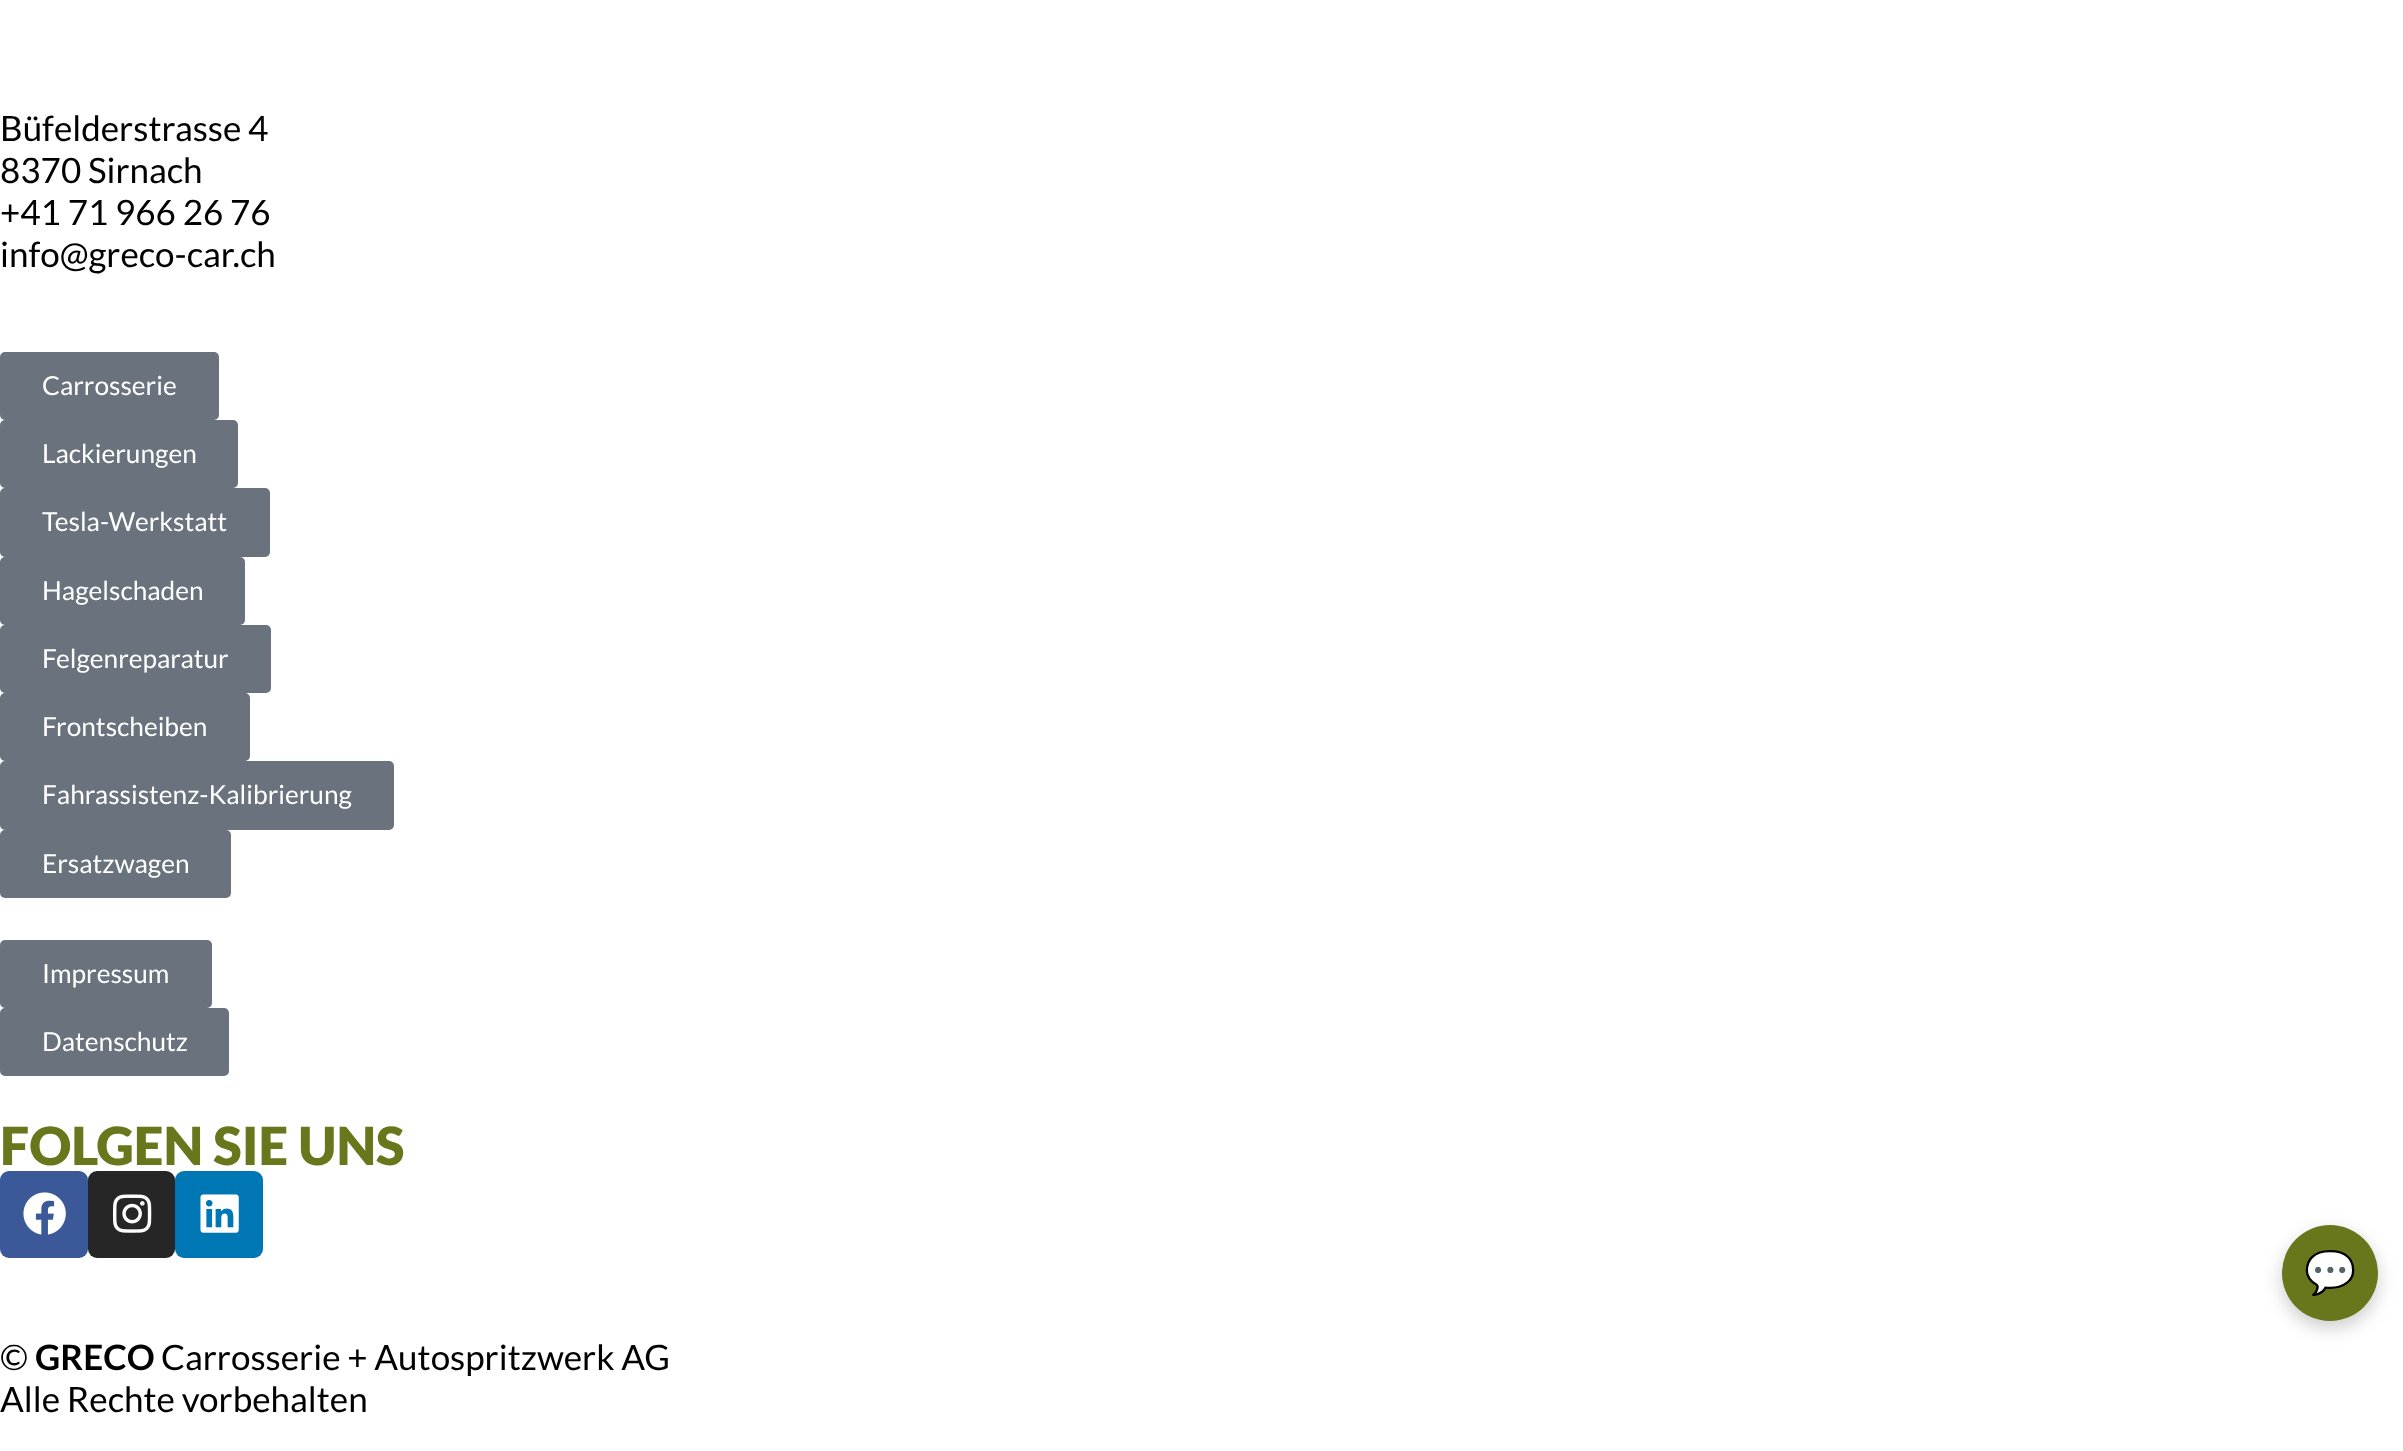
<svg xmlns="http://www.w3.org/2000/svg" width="2403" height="1451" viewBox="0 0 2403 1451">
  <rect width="100%" height="100%" fill="rgb(255,255,255)"/>
  <g font-family="Lato" font-size="35" fill="rgb(0,0,0)">
    <text>
      <tspan x="0" y="141">Büfelderstrasse 4</tspan>
      <tspan x="0" y="183">8370 Sirnach</tspan>
      <tspan x="0" y="225">+41 71 966 26 76</tspan>
      <tspan x="0" y="267">info@greco-car.ch</tspan>
    </text>
  </g>
  <rect x="0" y="352" width="219" height="68" rx="5" fill="rgb(105,114,125)"/>
  <text x="42" y="395" font-family="Lato" font-size="26.25" fill="rgb(255,255,255)">Carrosserie</text>
  <rect x="0" y="420" width="238" height="68" rx="5" fill="rgb(105,114,125)"/>
  <text x="42" y="463" font-family="Lato" font-size="26.25" fill="rgb(255,255,255)">Lackierungen</text>
  <rect x="0" y="488" width="270" height="69" rx="5" fill="rgb(105,114,125)"/>
  <text x="42" y="531" font-family="Lato" font-size="26.25" fill="rgb(255,255,255)">Tesla-Werkstatt</text>
  <rect x="0" y="557" width="245" height="68" rx="5" fill="rgb(105,114,125)"/>
  <text x="42" y="600" font-family="Lato" font-size="26.25" fill="rgb(255,255,255)">Hagelschaden</text>
  <rect x="0" y="625" width="271" height="68" rx="5" fill="rgb(105,114,125)"/>
  <text x="42" y="668" font-family="Lato" font-size="26.25" fill="rgb(255,255,255)">Felgenreparatur</text>
  <rect x="0" y="693" width="250" height="68" rx="5" fill="rgb(105,114,125)"/>
  <text x="42" y="736" font-family="Lato" font-size="26.25" fill="rgb(255,255,255)">Frontscheiben</text>
  <rect x="0" y="761" width="394" height="69" rx="5" fill="rgb(105,114,125)"/>
  <text x="42" y="804" font-family="Lato" font-size="26.25" fill="rgb(255,255,255)">Fahrassistenz-Kalibrierung</text>
  <rect x="0" y="830" width="231" height="68" rx="5" fill="rgb(105,114,125)"/>
  <text x="42" y="873" font-family="Lato" font-size="26.25" fill="rgb(255,255,255)">Ersatzwagen</text>
  <rect x="0" y="940" width="212" height="68" rx="5" fill="rgb(105,114,125)"/>
  <text x="42" y="983" font-family="Lato" font-size="26.25" fill="rgb(255,255,255)">Impressum</text>
  <rect x="0" y="1008" width="229" height="68" rx="5" fill="rgb(105,114,125)"/>
  <text x="42" y="1051" font-family="Lato" font-size="26.25" fill="rgb(255,255,255)">Datenschutz</text>
  <text x="0" y="1165" font-family="Lato" font-size="52.5" font-weight="900" fill="rgb(105,119,28)">FOLGEN SIE UNS</text>
  <rect x="0" y="1171" width="88" height="87" rx="9" fill="rgb(59,89,152)"/>
  <image x="23" y="1192" width="43" height="43" href="pic1.png"/>
  <rect x="88" y="1171" width="87" height="87" rx="9" fill="rgb(38,38,38)"/>
  <image x="113" y="1194" width="39" height="39" href="pic2.png"/>
  <rect x="175" y="1171" width="88" height="87" rx="9" fill="rgb(0,119,181)"/>
  <image x="200" y="1194" width="39" height="39" href="pic3.png"/>
  <text x="0" y="1370" font-family="Lato" font-size="35" fill="rgb(0,0,0)">©</text>
  <text x="35" y="1370" font-family="Lato" font-size="35" font-weight="bold" fill="rgb(0,0,0)">GRECO</text>
  <g font-family="Lato" font-size="35" fill="rgb(0,0,0)">
    <text x="161" y="1370">Carrosserie + Autospritzwerk AG</text>
    <text x="0" y="1412">Alle Rechte vorbehalten</text>
  </g>
  <rect x="2282" y="1232" width="96" height="96" rx="48" fill="rgba(0,0,0,0.2)" filter="blur(9px)"/>
  <circle cx="2330" cy="1273" r="48" fill="rgb(105,119,28)"/>
  <text x="2304" y="1287" font-family="Noto Color Emoji" font-size="42" fill="rgb(255,255,255)">💬</text>
</svg>
